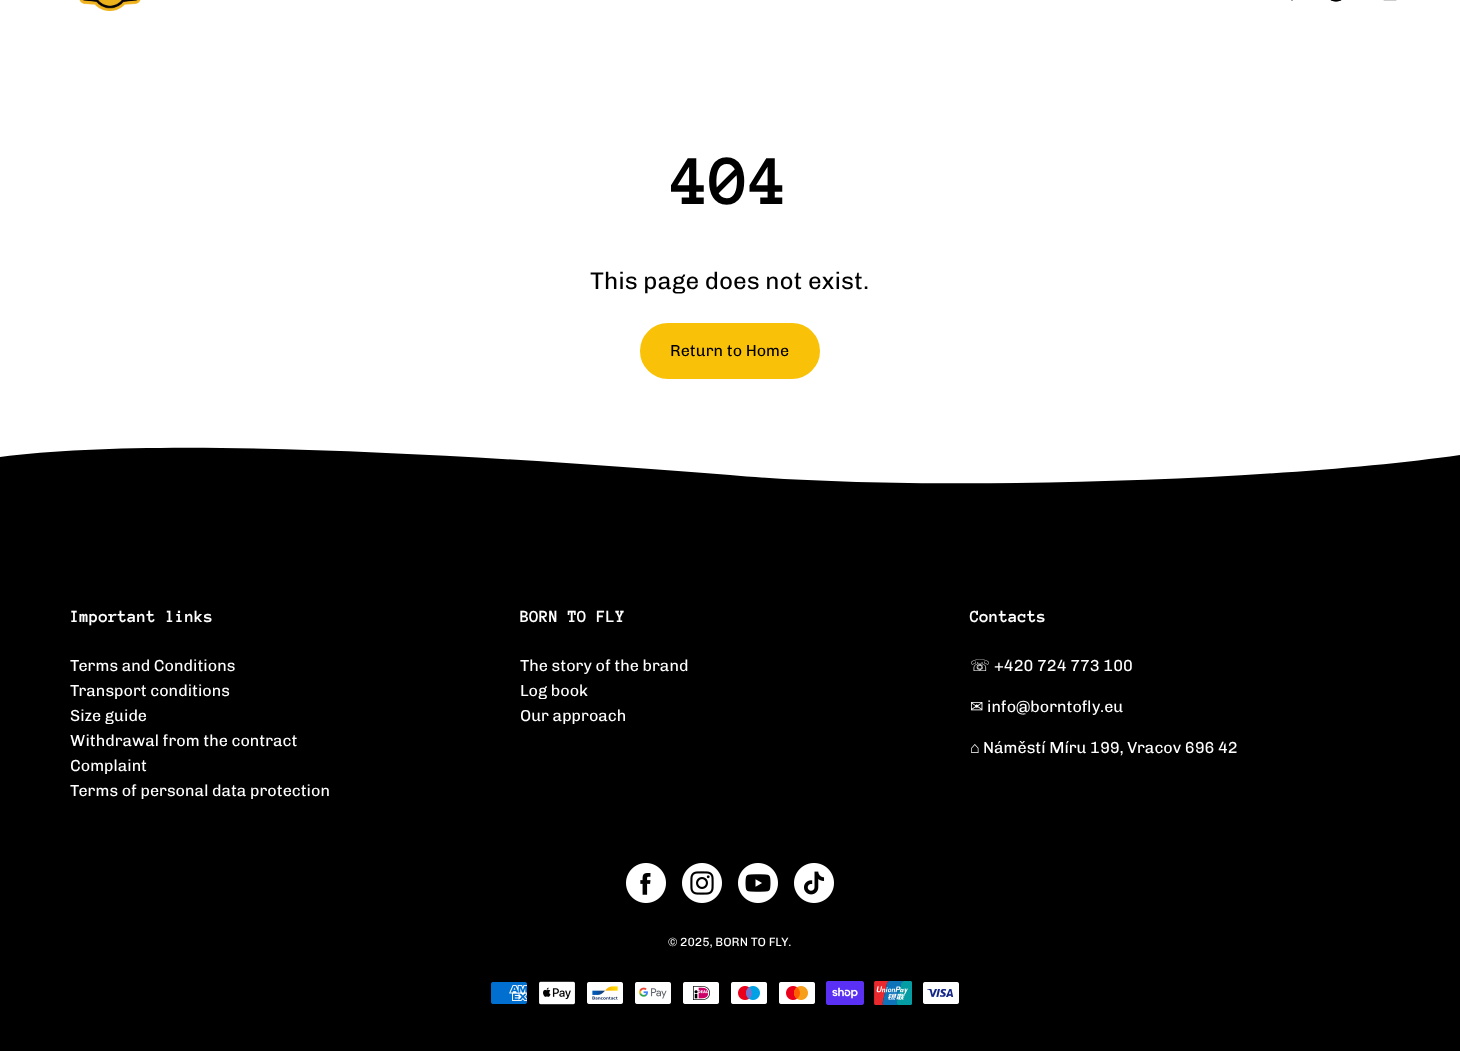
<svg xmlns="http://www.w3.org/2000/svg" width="1460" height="1051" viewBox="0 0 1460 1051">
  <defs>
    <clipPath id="clip1"><rect x="0" y="447" width="1460" height="100"/></clipPath>
  </defs>
  <rect width="100%" height="100%" fill="rgb(255,255,255)"/>
  <image x="79" y="0" width="62" height="11" href="pic1.png"/>
  <rect x="1291" y="0" width="2" height="1" fill="rgb(168,168,168)"/>
  <image x="1330" y="0" width="12" height="2" href="pic2.png"/>
  <image x="1383" y="0" width="14" height="1" href="pic3.png"/>
  <text x="671" y="204" font-family="Anonymous Pro" font-size="72" font-weight="bold" fill="rgb(0,0,0)">404</text>
  <text x="590" y="289" font-family="Chivo" font-size="24" fill="rgb(0,0,0)">This page does not exist.</text>
  <rect x="641" y="324" width="178" height="54" rx="27" fill="rgb(249,194,8)" stroke="rgb(249,194,8)" stroke-width="2"/>
  <text x="670" y="356" font-family="Chivo" font-size="16" fill="rgb(0,0,0)">Return to Home</text>
  <rect x="0" y="547" width="1460" height="504" fill="rgb(0,0,0)"/>
  <path d="M0 457C167 435 501 457 730 475C918 492 1272 482 1460 455V505H0" fill="rgb(0,0,0)"/>
  <g clip-path="url(#clip1)">
    <path d="M0 477C167 459 480 465 730 484C897 497 1272 501 1460 479V579H0Z" fill="rgb(0,0,0)"/>
  </g>
  <text x="70" y="622" font-family="Anonymous Pro" font-size="17.5" font-weight="bold" fill="rgb(255,255,255)">Important links</text>
  <g font-family="Chivo" font-size="16" fill="rgb(255,255,255)">
    <text>
      <tspan x="70" y="671">Terms and Conditions</tspan>
      <tspan x="70" y="696">Transport conditions</tspan>
      <tspan x="70" y="721">Size guide</tspan>
      <tspan x="70" y="746">Withdrawal from the contract</tspan>
      <tspan x="70" y="771">Complaint</tspan>
      <tspan x="70" y="796">Terms of personal data protection</tspan>
    </text>
  </g>
  <text x="520" y="622" font-family="Anonymous Pro" font-size="17.5" font-weight="bold" fill="rgb(255,255,255)">BORN TO FLY</text>
  <g font-family="Chivo" font-size="16" fill="rgb(255,255,255)">
    <text>
      <tspan x="520" y="671">The story of the brand</tspan>
      <tspan x="520" y="696">Log book</tspan>
      <tspan x="520" y="721">Our approach</tspan>
    </text>
  </g>
  <text x="970" y="622" font-family="Anonymous Pro" font-size="17.5" font-weight="bold" fill="rgb(255,255,255)">Contacts</text>
  <text x="970" y="671" font-family="DejaVu Sans" font-size="16" fill="rgb(255,255,255)">☏</text>
  <text x="994" y="671" font-family="Chivo" font-size="16" fill="rgb(255,255,255)">+420 724 773 100</text>
  <text x="970" y="712" font-family="DejaVu Sans" font-size="16" fill="rgb(255,255,255)">✉</text>
  <text x="987" y="712" font-family="Chivo" font-size="16" fill="rgb(255,255,255)">info@borntofly.eu</text>
  <text x="970" y="753" font-family="Liberation Sans" font-size="16" fill="rgb(255,255,255)">⌂</text>
  <text x="983" y="753" font-family="Chivo" font-size="16" fill="rgb(255,255,255)">Náměstí Míru 199, Vracov 696 42</text>
  <image x="626" y="863" width="40" height="40" href="pic4.png"/>
  <image x="682" y="863" width="40" height="40" href="pic5.png"/>
  <image x="738" y="863" width="40" height="40" href="pic6.png"/>
  <image x="794" y="863" width="40" height="40" href="pic7.png"/>
  <text x="668" y="946" font-family="Chivo" font-size="12" fill="rgb(255,255,255)">© 2025, BORN TO FLY.</text>
  <image x="491" y="982" width="36" height="22" href="pic8.png"/>
  <image x="539" y="981" width="36" height="24" href="pic9.png"/>
  <image x="587" y="982" width="36" height="22" href="pic10.png"/>
  <image x="635" y="982" width="36" height="22" href="pic11.png"/>
  <image x="683" y="982" width="36" height="22" href="pic12.png"/>
  <image x="731" y="982" width="36" height="22" href="pic13.png"/>
  <image x="779" y="982" width="36" height="22" href="pic14.png"/>
  <image x="826" y="981" width="38" height="24" href="pic15.png"/>
  <image x="874" y="981" width="38" height="24" href="pic16.png"/>
  <image x="923" y="982" width="36" height="22" href="pic17.png"/>
</svg>
